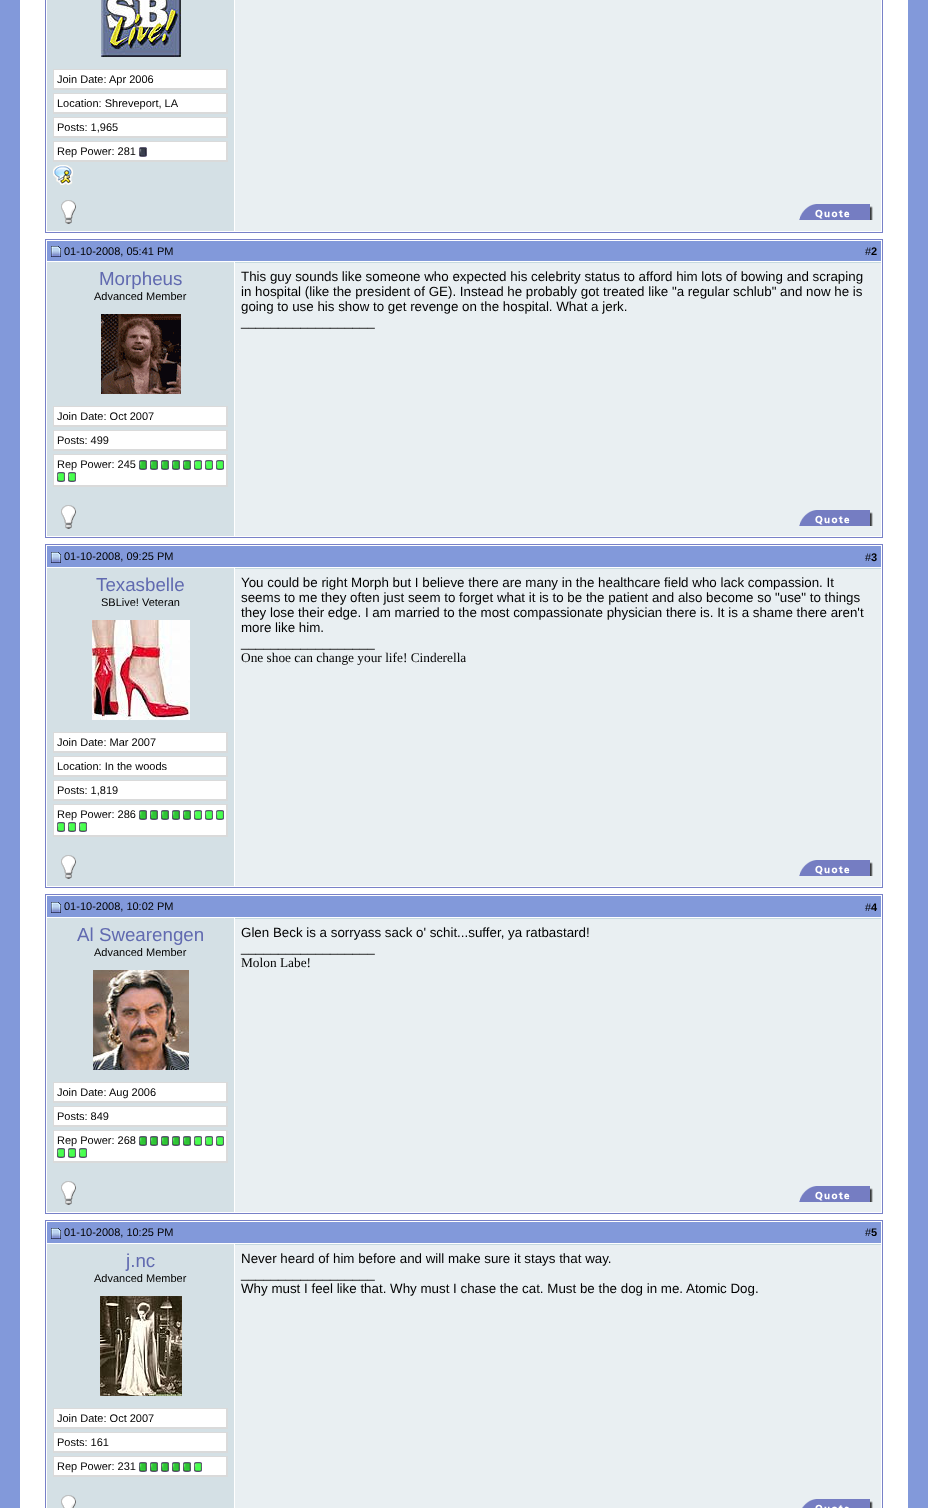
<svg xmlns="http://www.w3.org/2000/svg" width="928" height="1508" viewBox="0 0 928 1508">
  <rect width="100%" height="100%" fill="rgb(130,153,218)"/>
  <rect x="20" y="0" width="888" height="1508" fill="rgb(255,255,255)"/>
  <rect x="45.5" y="-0.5" width="837" height="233" fill="none" stroke="rgb(120,129,200)"/>
  <rect x="47" y="0" width="187" height="231" fill="rgb(212,224,229)"/>
  <image x="101" y="0" width="80" height="57" href="pic1.png"/>
  <rect x="54" y="70" width="172" height="18" fill="rgb(255,255,255)"/>
  <rect x="53" y="69" width="175" height="1" fill="rgb(218,218,218)"/>
  <rect x="226" y="69" width="2" height="21" fill="rgb(218,218,218)"/>
  <rect x="53" y="88" width="175" height="2" fill="rgb(218,218,218)"/>
  <rect x="53" y="69" width="1" height="21" fill="rgb(218,218,218)"/>
  <text x="57" y="83" font-family="Liberation Sans" font-size="11" fill="rgb(0,0,0)">Join Date: Apr 2006</text>
  <rect x="54" y="94" width="172" height="18" fill="rgb(255,255,255)"/>
  <rect x="53" y="93" width="175" height="1" fill="rgb(218,218,218)"/>
  <rect x="226" y="93" width="2" height="21" fill="rgb(218,218,218)"/>
  <rect x="53" y="112" width="175" height="2" fill="rgb(218,218,218)"/>
  <rect x="53" y="93" width="1" height="21" fill="rgb(218,218,218)"/>
  <text x="57" y="107" font-family="Liberation Sans" font-size="11" fill="rgb(0,0,0)">Location: Shreveport, LA</text>
  <rect x="54" y="118" width="172" height="18" fill="rgb(255,255,255)"/>
  <rect x="53" y="117" width="175" height="1" fill="rgb(218,218,218)"/>
  <rect x="226" y="117" width="2" height="21" fill="rgb(218,218,218)"/>
  <rect x="53" y="136" width="175" height="2" fill="rgb(218,218,218)"/>
  <rect x="53" y="117" width="1" height="21" fill="rgb(218,218,218)"/>
  <text x="57" y="131" font-family="Liberation Sans" font-size="11" fill="rgb(0,0,0)">Posts: 1,965</text>
  <rect x="54" y="142" width="172" height="18" fill="rgb(255,255,255)"/>
  <rect x="53" y="141" width="175" height="1" fill="rgb(218,218,218)"/>
  <rect x="226" y="141" width="2" height="21" fill="rgb(218,218,218)"/>
  <rect x="53" y="160" width="175" height="2" fill="rgb(218,218,218)"/>
  <rect x="53" y="141" width="1" height="21" fill="rgb(218,218,218)"/>
  <text x="57" y="155" font-family="Liberation Sans" font-size="11" fill="rgb(0,0,0)">Rep Power: 281</text>
  <image x="139" y="147" width="8" height="10" href="pic2.png"/>
  <image x="53" y="165" width="20" height="20" href="pic3.png"/>
  <rect x="235" y="0" width="646" height="231" fill="rgb(233,239,242)"/>
  <image x="61" y="200" width="15" height="24" href="pic4.png"/>
  <image x="799" y="204" width="74" height="16" href="pic5.png"/>
  <rect x="45.5" y="239.5" width="837" height="298" fill="none" stroke="rgb(120,129,200)"/>
  <rect x="47" y="241" width="834" height="20" fill="rgb(130,153,218)"/>
  <image x="51" y="246" width="10" height="11" href="pic6.png"/>
  <g font-family="Liberation Sans" font-size="11" fill="rgb(0,0,0)">
    <text x="64" y="255">01-10-2008, 05:41 PM</text>
    <text x="865" y="255">#</text>
  </g>
  <text x="871" y="255" font-family="Liberation Sans" font-size="11" font-weight="bold" fill="rgb(0,0,0)">2</text>
  <rect x="47" y="262" width="187" height="274" fill="rgb(212,224,229)"/>
  <text x="99" y="285" font-family="Liberation Sans" font-size="18.75" fill="rgb(97,106,176)">Morpheus</text>
  <text x="94" y="300" font-family="Liberation Sans" font-size="11" fill="rgb(0,0,0)">Advanced Member</text>
  <image x="101" y="314" width="80" height="80" href="pic7.png"/>
  <rect x="54" y="407" width="172" height="18" fill="rgb(255,255,255)"/>
  <rect x="53" y="406" width="175" height="1" fill="rgb(218,218,218)"/>
  <rect x="226" y="406" width="2" height="21" fill="rgb(218,218,218)"/>
  <rect x="53" y="425" width="175" height="2" fill="rgb(218,218,218)"/>
  <rect x="53" y="406" width="1" height="21" fill="rgb(218,218,218)"/>
  <text x="57" y="420" font-family="Liberation Sans" font-size="11" fill="rgb(0,0,0)">Join Date: Oct 2007</text>
  <rect x="54" y="431" width="172" height="18" fill="rgb(255,255,255)"/>
  <rect x="53" y="430" width="175" height="1" fill="rgb(218,218,218)"/>
  <rect x="226" y="430" width="2" height="21" fill="rgb(218,218,218)"/>
  <rect x="53" y="449" width="175" height="2" fill="rgb(218,218,218)"/>
  <rect x="53" y="430" width="1" height="21" fill="rgb(218,218,218)"/>
  <text x="57" y="444" font-family="Liberation Sans" font-size="11" fill="rgb(0,0,0)">Posts: 499</text>
  <rect x="54" y="455" width="172" height="30" fill="rgb(255,255,255)"/>
  <rect x="53" y="454" width="175" height="1" fill="rgb(218,218,218)"/>
  <rect x="226" y="454" width="2" height="33" fill="rgb(218,218,218)"/>
  <rect x="53" y="485" width="175" height="2" fill="rgb(218,218,218)"/>
  <rect x="53" y="454" width="1" height="33" fill="rgb(218,218,218)"/>
  <text x="57" y="468" font-family="Liberation Sans" font-size="11" fill="rgb(0,0,0)">Rep Power: 245</text>
  <image x="139" y="460" width="8" height="10" href="pic8.png"/>
  <image x="150" y="460" width="8" height="10" href="pic8.png"/>
  <image x="161" y="460" width="8" height="10" href="pic8.png"/>
  <image x="172" y="460" width="8" height="10" href="pic8.png"/>
  <image x="183" y="460" width="8" height="10" href="pic8.png"/>
  <image x="194" y="460" width="8" height="10" href="pic9.png"/>
  <image x="205" y="460" width="8" height="10" href="pic9.png"/>
  <image x="216" y="460" width="8" height="10" href="pic9.png"/>
  <image x="57" y="472" width="8" height="10" href="pic9.png"/>
  <image x="68" y="472" width="8" height="10" href="pic9.png"/>
  <rect x="235" y="263" width="646" height="273" fill="rgb(233,239,242)"/>
  <rect x="235" y="262" width="647" height="1" fill="rgb(197,217,223)"/>
  <rect x="881" y="262" width="1" height="1" fill="rgb(255,255,255)"/>
  <g font-family="Liberation Sans" font-size="13.35" fill="rgb(0,0,0)">
    <text>
      <tspan x="241" y="281">This guy sounds like someone who expected his celebrity status to afford him lots of bowing and scraping</tspan>
      <tspan x="241" y="296">in hospital (like the president of GE). Instead he probably got treated like "a regular schlub" and now he is</tspan>
      <tspan x="241" y="311">going to use his show to get revenge on the hospital. What a jerk.</tspan>
      <tspan x="241" y="326">__________________</tspan>
    </text>
  </g>
  <image x="61" y="505" width="15" height="24" href="pic4.png"/>
  <image x="799" y="510" width="74" height="16" href="pic5.png"/>
  <rect x="45.5" y="544.5" width="837" height="343" fill="none" stroke="rgb(120,129,200)"/>
  <rect x="47" y="546" width="834" height="21" fill="rgb(130,153,218)"/>
  <image x="51" y="552" width="10" height="11" href="pic6.png"/>
  <g font-family="Liberation Sans" font-size="11" fill="rgb(0,0,0)">
    <text x="64" y="560">01-10-2008, 09:25 PM</text>
    <text x="865" y="561">#</text>
  </g>
  <text x="871" y="561" font-family="Liberation Sans" font-size="11" font-weight="bold" fill="rgb(0,0,0)">3</text>
  <rect x="47" y="568" width="187" height="318" fill="rgb(212,224,229)"/>
  <text x="96" y="591" font-family="Liberation Sans" font-size="18.75" fill="rgb(97,106,176)">Texasbelle</text>
  <text x="101" y="606" font-family="Liberation Sans" font-size="11" fill="rgb(0,0,0)">SBLive! Veteran</text>
  <image x="92" y="620" width="98" height="100" href="pic10.png"/>
  <rect x="54" y="733" width="172" height="18" fill="rgb(255,255,255)"/>
  <rect x="53" y="732" width="175" height="1" fill="rgb(218,218,218)"/>
  <rect x="226" y="732" width="2" height="21" fill="rgb(218,218,218)"/>
  <rect x="53" y="751" width="175" height="2" fill="rgb(218,218,218)"/>
  <rect x="53" y="732" width="1" height="21" fill="rgb(218,218,218)"/>
  <text x="57" y="746" font-family="Liberation Sans" font-size="11" fill="rgb(0,0,0)">Join Date: Mar 2007</text>
  <rect x="54" y="757" width="172" height="18" fill="rgb(255,255,255)"/>
  <rect x="53" y="756" width="175" height="1" fill="rgb(218,218,218)"/>
  <rect x="226" y="756" width="2" height="21" fill="rgb(218,218,218)"/>
  <rect x="53" y="775" width="175" height="2" fill="rgb(218,218,218)"/>
  <rect x="53" y="756" width="1" height="21" fill="rgb(218,218,218)"/>
  <text x="57" y="770" font-family="Liberation Sans" font-size="11" fill="rgb(0,0,0)">Location: In the woods</text>
  <rect x="54" y="781" width="172" height="18" fill="rgb(255,255,255)"/>
  <rect x="53" y="780" width="175" height="1" fill="rgb(218,218,218)"/>
  <rect x="226" y="780" width="2" height="21" fill="rgb(218,218,218)"/>
  <rect x="53" y="799" width="175" height="2" fill="rgb(218,218,218)"/>
  <rect x="53" y="780" width="1" height="21" fill="rgb(218,218,218)"/>
  <text x="57" y="794" font-family="Liberation Sans" font-size="11" fill="rgb(0,0,0)">Posts: 1,819</text>
  <rect x="54" y="805" width="172" height="30" fill="rgb(255,255,255)"/>
  <rect x="53" y="804" width="175" height="1" fill="rgb(218,218,218)"/>
  <rect x="226" y="804" width="2" height="33" fill="rgb(218,218,218)"/>
  <rect x="53" y="835" width="175" height="2" fill="rgb(218,218,218)"/>
  <rect x="53" y="804" width="1" height="33" fill="rgb(218,218,218)"/>
  <text x="57" y="818" font-family="Liberation Sans" font-size="11" fill="rgb(0,0,0)">Rep Power: 286</text>
  <image x="139" y="810" width="8" height="10" href="pic8.png"/>
  <image x="150" y="810" width="8" height="10" href="pic8.png"/>
  <image x="161" y="810" width="8" height="10" href="pic8.png"/>
  <image x="172" y="810" width="8" height="10" href="pic8.png"/>
  <image x="183" y="810" width="8" height="10" href="pic8.png"/>
  <image x="194" y="810" width="8" height="10" href="pic9.png"/>
  <image x="205" y="810" width="8" height="10" href="pic9.png"/>
  <image x="216" y="810" width="8" height="10" href="pic9.png"/>
  <image x="57" y="822" width="8" height="10" href="pic9.png"/>
  <image x="68" y="822" width="8" height="10" href="pic9.png"/>
  <image x="79" y="822" width="8" height="10" href="pic9.png"/>
  <rect x="235" y="569" width="646" height="317" fill="rgb(233,239,242)"/>
  <rect x="235" y="568" width="647" height="1" fill="rgb(197,217,223)"/>
  <rect x="881" y="568" width="1" height="1" fill="rgb(255,255,255)"/>
  <g font-family="Liberation Sans" font-size="13.35" fill="rgb(0,0,0)">
    <text>
      <tspan x="241" y="587">You could be right Morph but I believe there are many in the healthcare field who lack compassion. It</tspan>
      <tspan x="241" y="602">seems to me they often just seem to forget what it is to be the patient and also become so "use" to things</tspan>
      <tspan x="241" y="617">they lose their edge. I am married to the most compassionate physician there is. It is a shame there aren't</tspan>
      <tspan x="241" y="632">more like him.</tspan>
      <tspan x="241" y="647">__________________</tspan>
    </text>
  </g>
  <text x="241" y="662" font-family="Liberation Serif" font-size="13.35" fill="rgb(0,0,0)">One shoe can change your life! Cinderella</text>
  <image x="61" y="855" width="15" height="24" href="pic4.png"/>
  <image x="799" y="860" width="74" height="16" href="pic5.png"/>
  <rect x="45.5" y="894.5" width="837" height="319" fill="none" stroke="rgb(120,129,200)"/>
  <rect x="47" y="896" width="834" height="21" fill="rgb(130,153,218)"/>
  <image x="51" y="902" width="10" height="11" href="pic6.png"/>
  <g font-family="Liberation Sans" font-size="11" fill="rgb(0,0,0)">
    <text x="64" y="910">01-10-2008, 10:02 PM</text>
    <text x="865" y="911">#</text>
  </g>
  <text x="871" y="911" font-family="Liberation Sans" font-size="11" font-weight="bold" fill="rgb(0,0,0)">4</text>
  <rect x="47" y="918" width="187" height="294" fill="rgb(212,224,229)"/>
  <text x="77" y="941" font-family="Liberation Sans" font-size="18.75" fill="rgb(97,106,176)">Al Swearengen</text>
  <text x="94" y="956" font-family="Liberation Sans" font-size="11" fill="rgb(0,0,0)">Advanced Member</text>
  <image x="93" y="970" width="96" height="100" href="pic11.png"/>
  <rect x="54" y="1083" width="172" height="18" fill="rgb(255,255,255)"/>
  <rect x="53" y="1082" width="175" height="1" fill="rgb(218,218,218)"/>
  <rect x="226" y="1082" width="2" height="21" fill="rgb(218,218,218)"/>
  <rect x="53" y="1101" width="175" height="2" fill="rgb(218,218,218)"/>
  <rect x="53" y="1082" width="1" height="21" fill="rgb(218,218,218)"/>
  <text x="57" y="1096" font-family="Liberation Sans" font-size="11" fill="rgb(0,0,0)">Join Date: Aug 2006</text>
  <rect x="54" y="1107" width="172" height="18" fill="rgb(255,255,255)"/>
  <rect x="53" y="1106" width="175" height="1" fill="rgb(218,218,218)"/>
  <rect x="226" y="1106" width="2" height="21" fill="rgb(218,218,218)"/>
  <rect x="53" y="1125" width="175" height="2" fill="rgb(218,218,218)"/>
  <rect x="53" y="1106" width="1" height="21" fill="rgb(218,218,218)"/>
  <text x="57" y="1120" font-family="Liberation Sans" font-size="11" fill="rgb(0,0,0)">Posts: 849</text>
  <rect x="54" y="1131" width="172" height="30" fill="rgb(255,255,255)"/>
  <rect x="53" y="1130" width="175" height="1" fill="rgb(218,218,218)"/>
  <rect x="226" y="1130" width="2" height="33" fill="rgb(218,218,218)"/>
  <rect x="53" y="1161" width="175" height="2" fill="rgb(218,218,218)"/>
  <rect x="53" y="1130" width="1" height="33" fill="rgb(218,218,218)"/>
  <text x="57" y="1144" font-family="Liberation Sans" font-size="11" fill="rgb(0,0,0)">Rep Power: 268</text>
  <image x="139" y="1136" width="8" height="10" href="pic8.png"/>
  <image x="150" y="1136" width="8" height="10" href="pic8.png"/>
  <image x="161" y="1136" width="8" height="10" href="pic8.png"/>
  <image x="172" y="1136" width="8" height="10" href="pic8.png"/>
  <image x="183" y="1136" width="8" height="10" href="pic8.png"/>
  <image x="194" y="1136" width="8" height="10" href="pic9.png"/>
  <image x="205" y="1136" width="8" height="10" href="pic9.png"/>
  <image x="216" y="1136" width="8" height="10" href="pic9.png"/>
  <image x="57" y="1148" width="8" height="10" href="pic9.png"/>
  <image x="68" y="1148" width="8" height="10" href="pic9.png"/>
  <image x="79" y="1148" width="8" height="10" href="pic9.png"/>
  <rect x="235" y="919" width="646" height="293" fill="rgb(233,239,242)"/>
  <rect x="235" y="918" width="647" height="1" fill="rgb(197,217,223)"/>
  <rect x="881" y="918" width="1" height="1" fill="rgb(255,255,255)"/>
  <g font-family="Liberation Sans" font-size="13.35" fill="rgb(0,0,0)">
    <text>
      <tspan x="241" y="937">Glen Beck is a sorryass sack o' schit...suffer, ya ratbastard!</tspan>
      <tspan x="241" y="952">__________________</tspan>
    </text>
  </g>
  <text x="241" y="967" font-family="Liberation Serif" font-size="13.35" fill="rgb(0,0,0)">Molon Labe!</text>
  <image x="61" y="1181" width="15" height="24" href="pic4.png"/>
  <image x="799" y="1186" width="74" height="16" href="pic5.png"/>
  <rect x="45.5" y="1220.5" width="837" height="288" fill="none" stroke="rgb(120,129,200)"/>
  <rect x="47" y="1222" width="834" height="21" fill="rgb(130,153,218)"/>
  <image x="51" y="1228" width="10" height="11" href="pic6.png"/>
  <g font-family="Liberation Sans" font-size="11" fill="rgb(0,0,0)">
    <text x="64" y="1236">01-10-2008, 10:25 PM</text>
    <text x="865" y="1236">#</text>
  </g>
  <text x="871" y="1236" font-family="Liberation Sans" font-size="11" font-weight="bold" fill="rgb(0,0,0)">5</text>
  <rect x="47" y="1244" width="187" height="264" fill="rgb(212,224,229)"/>
  <text x="126" y="1267" font-family="Liberation Sans" font-size="18.75" fill="rgb(97,106,176)">j.nc</text>
  <text x="94" y="1282" font-family="Liberation Sans" font-size="11" fill="rgb(0,0,0)">Advanced Member</text>
  <image x="100" y="1296" width="82" height="100" href="pic12.png"/>
  <rect x="54" y="1409" width="172" height="18" fill="rgb(255,255,255)"/>
  <rect x="53" y="1408" width="175" height="1" fill="rgb(218,218,218)"/>
  <rect x="226" y="1408" width="2" height="21" fill="rgb(218,218,218)"/>
  <rect x="53" y="1427" width="175" height="2" fill="rgb(218,218,218)"/>
  <rect x="53" y="1408" width="1" height="21" fill="rgb(218,218,218)"/>
  <text x="57" y="1422" font-family="Liberation Sans" font-size="11" fill="rgb(0,0,0)">Join Date: Oct 2007</text>
  <rect x="54" y="1433" width="172" height="18" fill="rgb(255,255,255)"/>
  <rect x="53" y="1432" width="175" height="1" fill="rgb(218,218,218)"/>
  <rect x="226" y="1432" width="2" height="21" fill="rgb(218,218,218)"/>
  <rect x="53" y="1451" width="175" height="2" fill="rgb(218,218,218)"/>
  <rect x="53" y="1432" width="1" height="21" fill="rgb(218,218,218)"/>
  <text x="57" y="1446" font-family="Liberation Sans" font-size="11" fill="rgb(0,0,0)">Posts: 161</text>
  <rect x="54" y="1457" width="172" height="18" fill="rgb(255,255,255)"/>
  <rect x="53" y="1456" width="175" height="1" fill="rgb(218,218,218)"/>
  <rect x="226" y="1456" width="2" height="21" fill="rgb(218,218,218)"/>
  <rect x="53" y="1475" width="175" height="2" fill="rgb(218,218,218)"/>
  <rect x="53" y="1456" width="1" height="21" fill="rgb(218,218,218)"/>
  <text x="57" y="1470" font-family="Liberation Sans" font-size="11" fill="rgb(0,0,0)">Rep Power: 231</text>
  <image x="139" y="1462" width="8" height="10" href="pic8.png"/>
  <image x="150" y="1462" width="8" height="10" href="pic8.png"/>
  <image x="161" y="1462" width="8" height="10" href="pic8.png"/>
  <image x="172" y="1462" width="8" height="10" href="pic8.png"/>
  <image x="183" y="1462" width="8" height="10" href="pic8.png"/>
  <image x="194" y="1462" width="8" height="10" href="pic9.png"/>
  <rect x="235" y="1245" width="646" height="263" fill="rgb(233,239,242)"/>
  <rect x="235" y="1244" width="647" height="1" fill="rgb(197,217,223)"/>
  <rect x="881" y="1244" width="1" height="1" fill="rgb(255,255,255)"/>
  <g font-family="Liberation Sans" font-size="13.35" fill="rgb(0,0,0)">
    <text>
      <tspan x="241" y="1263">Never heard of him before and will make sure it stays that way.</tspan>
      <tspan x="241" y="1278">__________________</tspan>
      <tspan x="241" y="1293">Why must I feel like that. Why must I chase the cat. Must be the dog in me. Atomic Dog.</tspan>
    </text>
  </g>
  <image x="61" y="1495" width="15" height="13" href="pic13.png"/>
  <image x="802" y="1499" width="71" height="9" href="pic14.png"/>
</svg>
